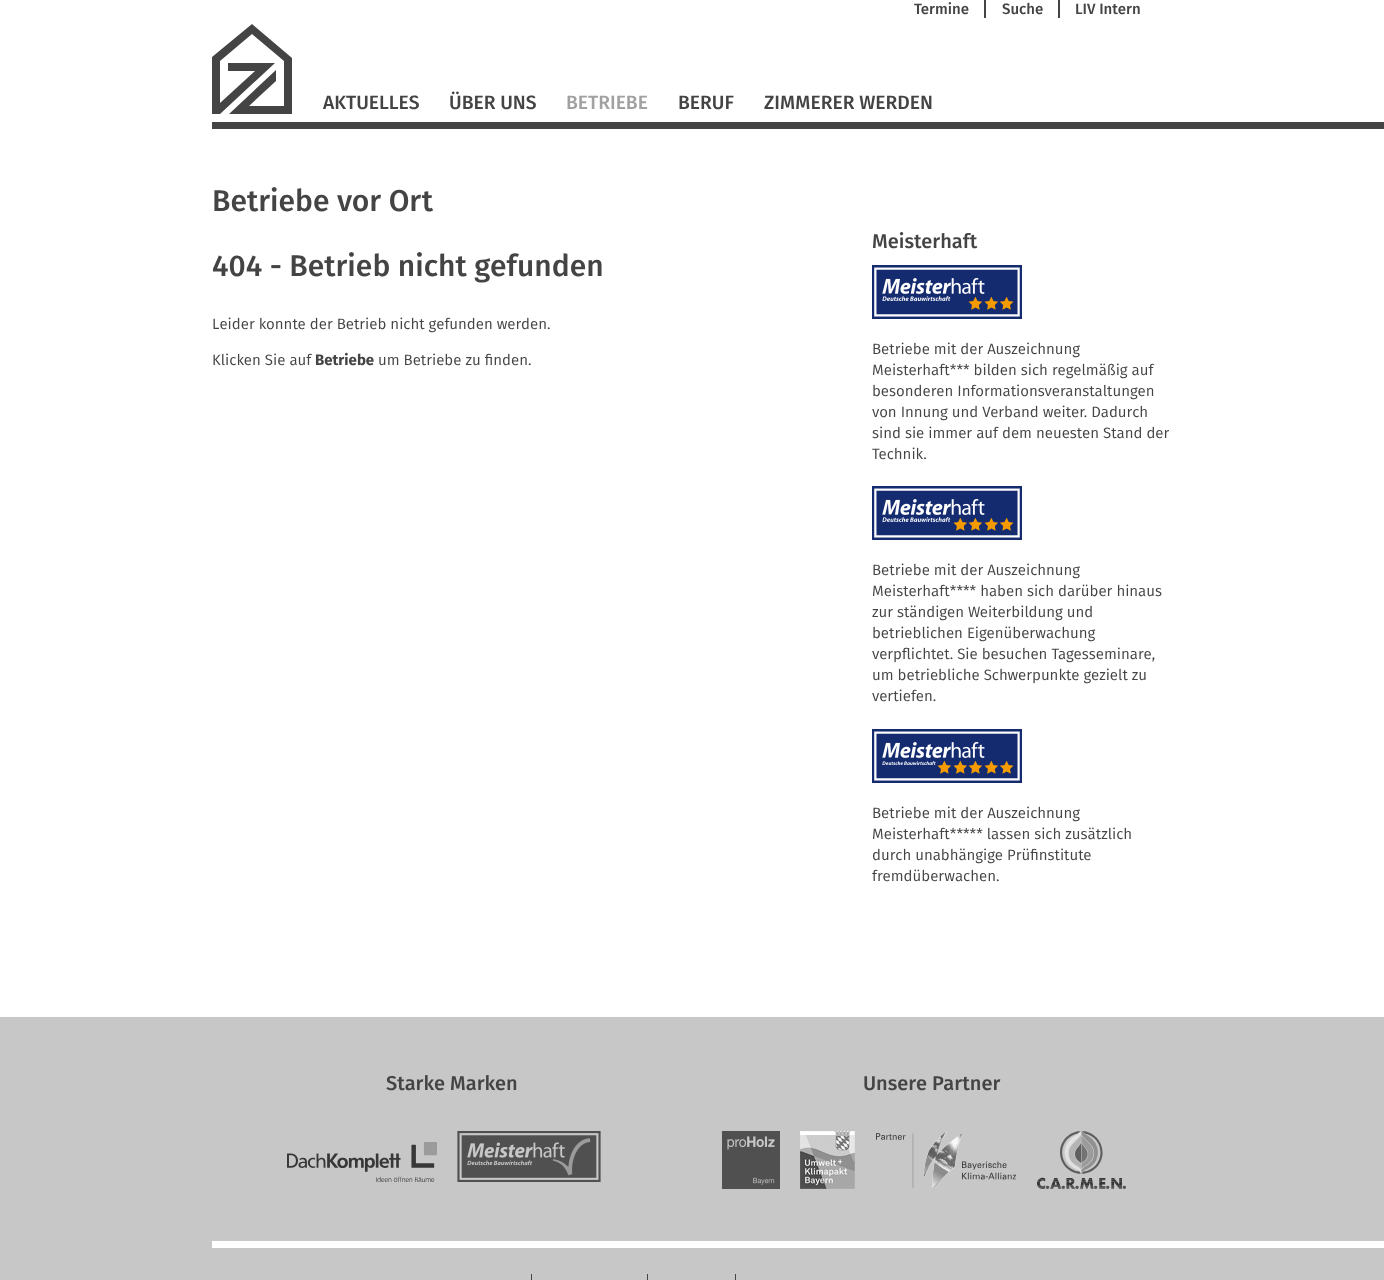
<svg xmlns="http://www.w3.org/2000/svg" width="1384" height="1280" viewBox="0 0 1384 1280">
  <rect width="100%" height="100%" fill="rgb(255,255,255)"/>
  <rect x="984" y="0" width="2" height="18" fill="rgb(68,68,68)"/>
  <text x="914" y="14" font-family="Fira Sans" font-size="15" font-weight="500" fill="rgb(68,68,68)">Termine</text>
  <rect x="1058" y="0" width="2" height="18" fill="rgb(68,68,68)"/>
  <g font-family="Fira Sans" font-size="15" font-weight="500" fill="rgb(68,68,68)">
    <text x="1002" y="14">Suche</text>
    <text x="1075" y="14">LIV Intern</text>
  </g>
  <path d="M252 24L212 57V114H220L275 63H228V71H255L220 103V61L252 34L284 61V106H249L276 81V71V70L229 114H292V58Z" fill="rgb(68,68,68)"/>
  <g font-family="Fira Sans" font-size="19.25" font-weight="500" fill="rgb(68,68,68)">
    <text x="323" y="109">AKTUELLES</text>
    <text x="449" y="109">ÜBER UNS</text>
  </g>
  <text x="566" y="109" font-family="Fira Sans" font-size="19.25" font-weight="500" fill="rgb(161,161,161)">BETRIEBE</text>
  <g font-family="Fira Sans" font-size="19.25" font-weight="500" fill="rgb(68,68,68)">
    <text x="678" y="109">BERUF</text>
    <text x="764" y="109">ZIMMERER WERDEN</text>
  </g>
  <rect x="212" y="122" width="1172" height="7" fill="rgb(68,68,68)"/>
  <g font-family="Fira Sans" font-size="30" font-weight="500" fill="rgb(68,68,68)">
    <text x="212" y="211">Betriebe vor Ort</text>
    <text x="212" y="276">404 - Betrieb nicht gefunden</text>
  </g>
  <g font-family="Fira Sans" font-size="15" fill="rgb(68,68,68)">
    <text x="212" y="329">Leider konnte der Betrieb nicht gefunden werden.</text>
    <text x="212" y="365">Klicken Sie auf</text>
  </g>
  <text x="315" y="365" font-family="Fira Sans" font-size="15" font-weight="bold" fill="rgb(68,68,68)">Betriebe</text>
  <text x="378" y="365" font-family="Fira Sans" font-size="15" fill="rgb(68,68,68)">um Betriebe zu finden.</text>
  <text x="872" y="248" font-family="Fira Sans" font-size="20" font-weight="500" fill="rgb(68,68,68)">Meisterhaft</text>
  <image x="872" y="265" width="150" height="54" href="pic1.png"/>
  <g font-family="Fira Sans" font-size="15" fill="rgb(68,68,68)">
    <text>
      <tspan x="872" y="354">Betriebe mit der Auszeichnung</tspan>
      <tspan x="872" y="375">Meisterhaft*** bilden sich regelmäßig auf</tspan>
      <tspan x="872" y="396">besonderen Informationsveranstaltungen</tspan>
      <tspan x="872" y="417">von Innung und Verband weiter. Dadurch</tspan>
      <tspan x="872" y="438">sind sie immer auf dem neuesten Stand der</tspan>
      <tspan x="872" y="459">Technik.</tspan>
    </text>
  </g>
  <image x="872" y="486" width="150" height="54" href="pic2.png"/>
  <g font-family="Fira Sans" font-size="15" fill="rgb(68,68,68)">
    <text>
      <tspan x="872" y="575">Betriebe mit der Auszeichnung</tspan>
      <tspan x="872" y="596">Meisterhaft**** haben sich darüber hinaus</tspan>
      <tspan x="872" y="617">zur ständigen Weiterbildung und</tspan>
      <tspan x="872" y="638">betrieblichen Eigenüberwachung</tspan>
      <tspan x="872" y="659">verpflichtet. Sie besuchen Tagesseminare,</tspan>
      <tspan x="872" y="680">um betriebliche Schwerpunkte gezielt zu</tspan>
      <tspan x="872" y="701">vertiefen.</tspan>
    </text>
  </g>
  <image x="872" y="729" width="150" height="54" href="pic3.png"/>
  <g font-family="Fira Sans" font-size="15" fill="rgb(68,68,68)">
    <text>
      <tspan x="872" y="818">Betriebe mit der Auszeichnung</tspan>
      <tspan x="872" y="839">Meisterhaft***** lassen sich zusätzlich</tspan>
      <tspan x="872" y="860">durch unabhängige Prüfinstitute</tspan>
      <tspan x="872" y="881">fremdüberwachen.</tspan>
    </text>
  </g>
  <rect x="0" y="1017" width="1384" height="263" fill="rgb(199,199,199)"/>
  <text x="386" y="1090" font-family="Fira Sans" font-size="20" font-weight="500" fill="rgb(68,68,68)">Starke Marken</text>
  <image x="287" y="1142" width="150" height="40" href="pic4.png"/>
  <image x="457" y="1131" width="144" height="51" href="pic5.png"/>
  <text x="863" y="1090" font-family="Fira Sans" font-size="20" font-weight="500" fill="rgb(68,68,68)">Unsere Partner</text>
  <image x="722" y="1131" width="58" height="58" href="pic6.png"/>
  <image x="800" y="1131" width="55" height="58" href="pic7.png"/>
  <image x="876" y="1131" width="140" height="58" href="pic8.png"/>
  <image x="1037" y="1131" width="89" height="58" href="pic9.png"/>
  <rect x="212" y="1241" width="1172" height="7" fill="rgb(255,255,255)"/>
  <rect x="531" y="1274" width="1" height="6" fill="rgb(68,68,68)"/>
  <rect x="647" y="1274" width="1" height="6" fill="rgb(68,68,68)"/>
  <rect x="735" y="1274" width="1" height="6" fill="rgb(68,68,68)"/>
</svg>
